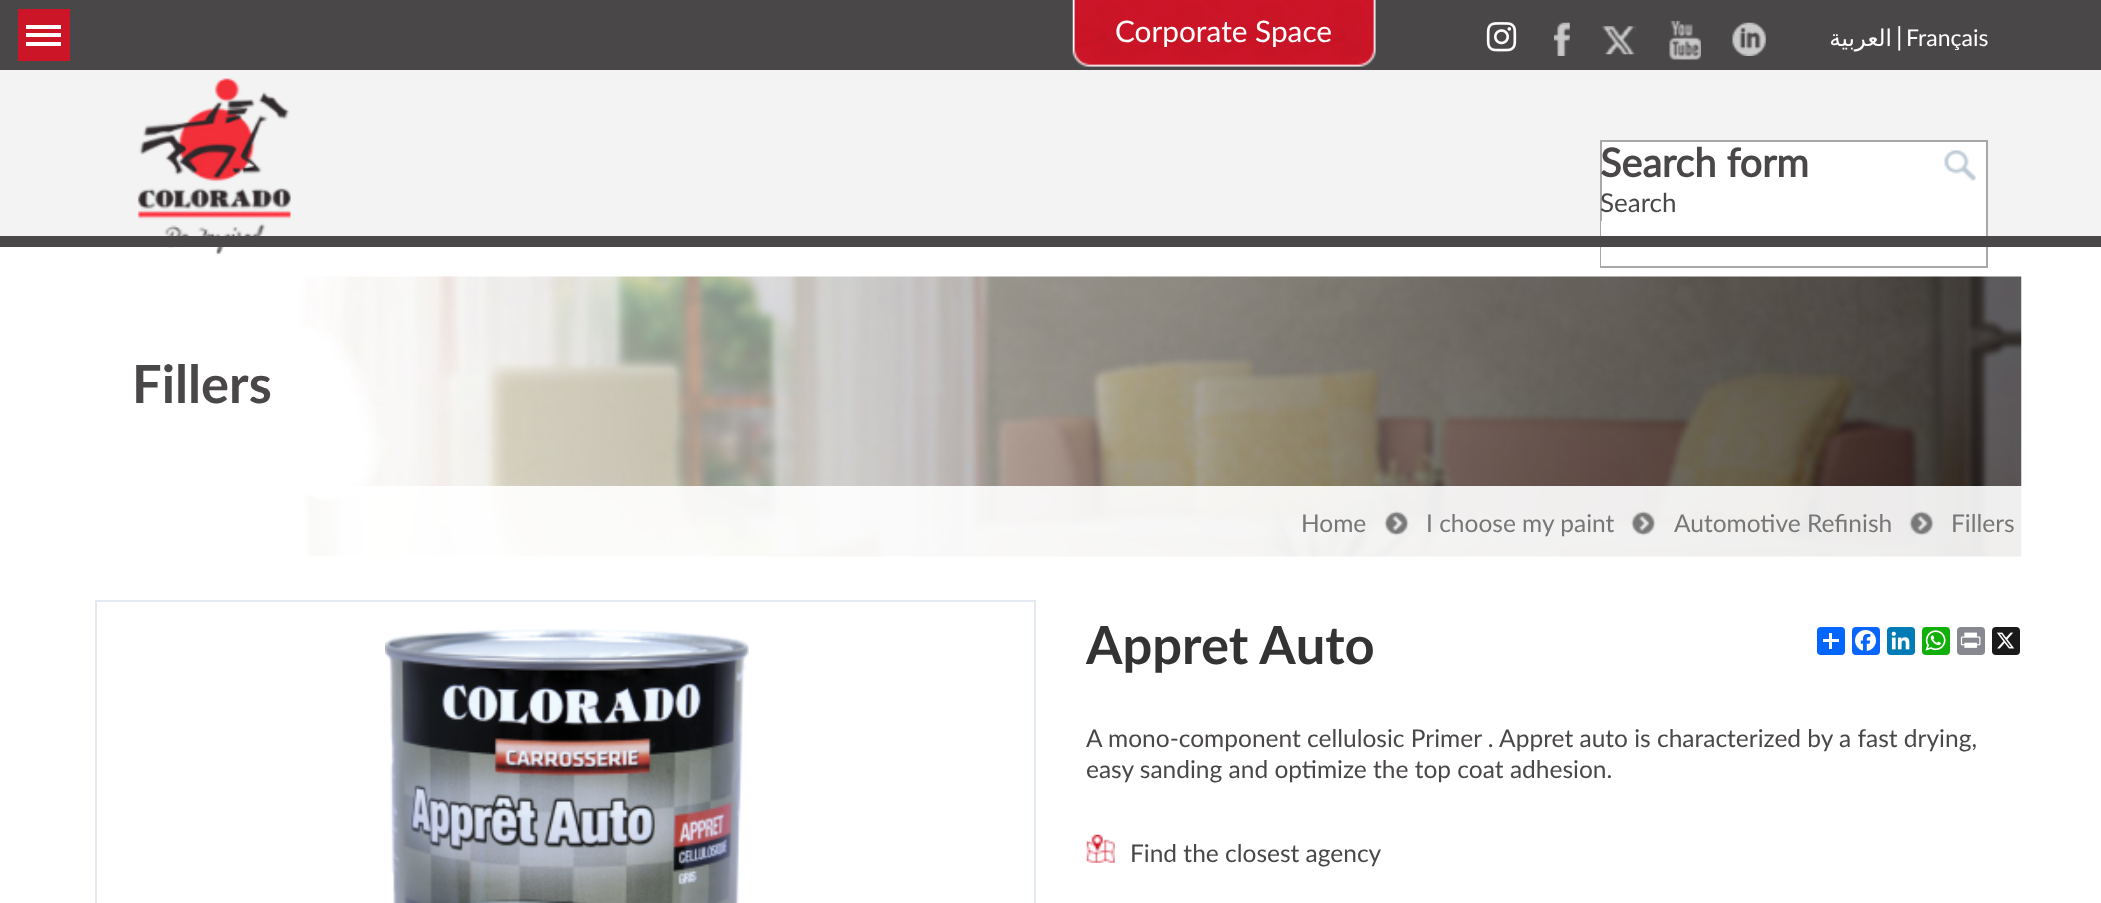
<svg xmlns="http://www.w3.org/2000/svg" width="2101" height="903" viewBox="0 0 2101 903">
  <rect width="100%" height="100%" fill="rgb(255,255,255)"/>
  <rect x="0" y="70" width="2101" height="166" fill="rgb(243,243,243)"/>
  <rect x="0" y="0" width="2101" height="70" fill="rgb(74,71,72)"/>
  <rect x="18" y="9" width="52" height="52" fill="rgb(205,21,40)"/>
  <rect x="26" y="25" width="35" height="4" fill="rgb(255,255,255)"/>
  <rect x="26" y="33" width="35" height="4" fill="rgb(255,255,255)"/>
  <rect x="26" y="42" width="35" height="4" fill="rgb(255,255,255)"/>
  <image x="1072" y="0" width="304" height="67" href="pic1.png"/>
  <text x="1115" y="42" font-family="Lato" font-size="29.75" fill="rgb(255,255,255)">Corporate Space</text>
  <image x="1486" y="22" width="31" height="30" href="pic2.png"/>
  <image x="1554" y="22" width="16" height="34" href="pic3.png"/>
  <image x="1601" y="26" width="36" height="29" href="pic4.png"/>
  <image x="1669" y="21" width="32" height="39" href="pic5.png"/>
  <image x="1732" y="22" width="34" height="34" href="pic6.png"/>
  <text x="1892" y="46" font-family="DejaVu Sans" font-size="23" direction="rtl" fill="rgb(255,255,255)">العربية</text>
  <text x="1896" y="46" font-family="Lato" font-size="26" fill="rgb(255,255,255)">|</text>
  <text x="1906" y="46" font-family="Lato" font-size="23" fill="rgb(255,255,255)">Français</text>
  <image x="137" y="78" width="154" height="176" href="pic7.png"/>
  <rect x="1602" y="142" width="384" height="79" fill="rgb(255,255,255)"/>
  <rect x="1601" y="141" width="386" height="126" fill="none" stroke="rgb(170,167,168)" stroke-width="2"/>
  <text x="1600" y="177" font-family="Lato" font-size="39.5" font-weight="bold" fill="rgb(74,71,72)">Search form</text>
  <image x="1944" y="150" width="32" height="31" href="pic8.png"/>
  <text x="1600" y="212" font-family="Lato" font-size="26" fill="rgb(74,71,72)">Search</text>
  <rect x="1601" y="221" width="385" height="45" fill="rgb(255,255,255)"/>
  <rect x="0" y="236" width="2101" height="11" fill="rgb(74,71,72)"/>
  <text x="132" y="403" font-family="'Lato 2'" font-size="52.5" font-weight="bold" fill="rgb(74,71,72)">Fillers</text>
  <image x="299" y="276" width="1723" height="281" href="pic9.png"/>
  <rect x="299" y="486" width="1723" height="71" fill="rgba(255,255,255,0.91)"/>
  <text x="1301" y="532" font-family="'Lato 2'" font-size="24.5" fill="rgb(119,119,119)">Home</text>
  <image x="1384" y="511" width="25" height="25" href="pic10.png"/>
  <text x="1426" y="532" font-family="'Lato 2'" font-size="24.5" fill="rgb(119,119,119)">I choose my paint</text>
  <image x="1631" y="511" width="25" height="25" href="pic11.png"/>
  <text x="1674" y="532" font-family="'Lato 2'" font-size="24.5" fill="rgb(119,119,119)">Automotive Refinish</text>
  <image x="1909" y="511" width="25" height="25" href="pic12.png"/>
  <text x="1951" y="532" font-family="'Lato 2'" font-size="24.5" fill="rgb(119,119,119)">Fillers</text>
  <rect x="96" y="601" width="939" height="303" fill="none" stroke="rgb(228,234,241)" stroke-width="2"/>
  <image x="385" y="629" width="364" height="274" href="pic13.png"/>
  <text x="1086" y="664" font-family="'Lato 2'" font-size="52.5" font-weight="bold" fill="rgb(51,51,51)">Appret Auto</text>
  <g font-family="Lato" font-size="24.5" fill="rgb(74,71,72)">
    <text>
      <tspan x="1086" y="747">A mono-component cellulosic Primer . Appret auto is characterized by a fast drying,</tspan>
      <tspan x="1086" y="778">easy sanding and optimize the top coat adhesion.</tspan>
    </text>
  </g>
  <image x="1086" y="834" width="29" height="29" href="pic14.png"/>
  <text x="1130" y="862" font-family="Lato" font-size="24.5" fill="rgb(74,71,72)">Find the closest agency</text>
  <rect x="1817" y="627" width="28" height="28" rx="4" fill="rgb(1,102,255)"/>
  <rect x="1829" y="633" width="3" height="16" fill="rgb(255,255,255)"/>
  <rect x="1823" y="639" width="16" height="3" fill="rgb(255,255,255)"/>
  <rect x="1852" y="627" width="28" height="28" rx="4" fill="rgb(8,102,255)"/>
  <image x="1855" y="630" width="21" height="21" href="pic15.png"/>
  <rect x="1887" y="627" width="28" height="28" rx="4" fill="rgb(0,123,181)"/>
  <image x="1891" y="631" width="19" height="19" href="pic16.png"/>
  <rect x="1922" y="627" width="28" height="28" rx="4" fill="rgb(18,175,10)"/>
  <image x="1925" y="630" width="21" height="21" href="pic17.png"/>
  <rect x="1957" y="627" width="28" height="28" rx="4" fill="rgb(136,137,144)"/>
  <image x="1960" y="632" width="21" height="16" href="pic18.png"/>
  <rect x="1992" y="627" width="28" height="28" rx="4" fill="rgb(26,26,26)"/>
  <image x="1996" y="632" width="19" height="17" href="pic19.png"/>
</svg>
